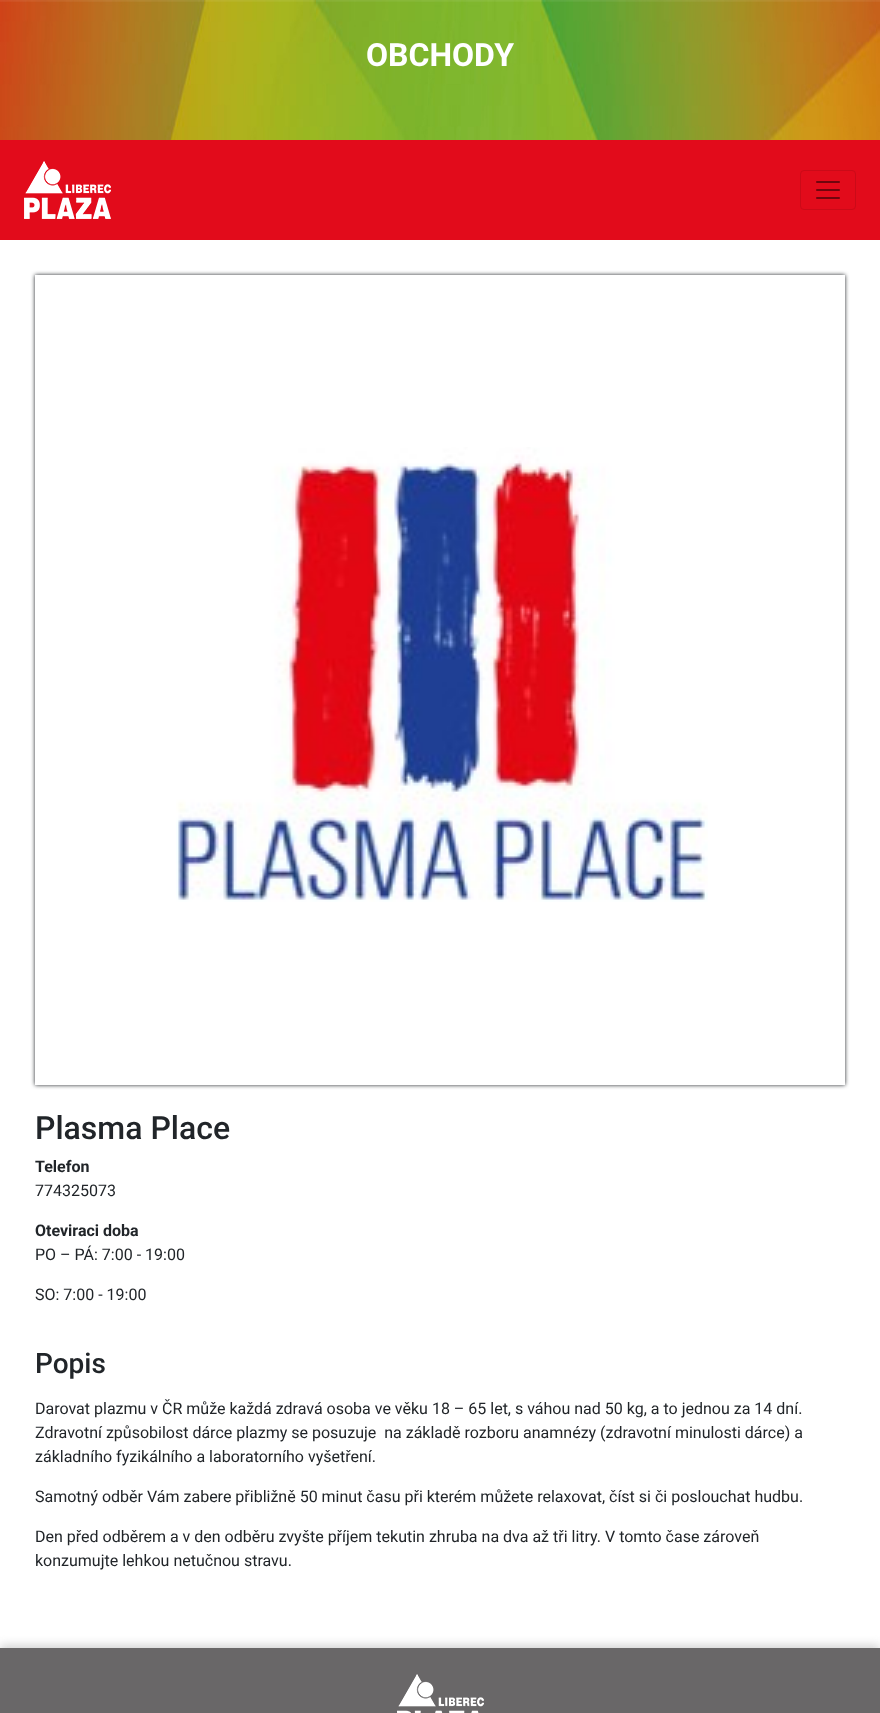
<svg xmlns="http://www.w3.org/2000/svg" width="880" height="1713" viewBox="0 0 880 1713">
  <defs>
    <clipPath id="clip1"><path d="M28 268H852V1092H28ZM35 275H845V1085H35Z" clip-rule="evenodd"/></clipPath>
  </defs>
  <rect width="100%" height="100%" fill="rgb(255,255,255)"/>
  <image x="0" y="0" width="880" height="140" href="pic1.png"/>
  <text x="366" y="66" font-family="Roboto" font-size="32" font-weight="bold" fill="rgb(255,255,255)">OBCHODY</text>
  <rect x="0" y="140" width="880" height="100" fill="rgb(226,11,27)"/>
  <image x="24" y="161" width="87" height="58" href="pic2.png"/>
  <rect x="800.5" y="170.5" width="55" height="39" rx="3.5" fill="none" stroke="rgb(203,10,24)"/>
  <image x="816" y="181" width="24" height="18" href="pic3.png"/>
  <g clip-path="url(#clip1)">
    <rect x="35" y="275" width="810" height="810" fill="rgb(33,37,41)" filter="blur(2px)"/>
  </g>
  <image x="176" y="447" width="532" height="455" href="pic4.png"/>
  <text x="35" y="1139" font-family="Roboto" font-size="32" font-weight="500" fill="rgb(33,37,41)">Plasma Place</text>
  <text x="35" y="1172" font-family="Roboto" font-size="16" font-weight="bold" fill="rgb(33,37,41)">Telefon</text>
  <text x="35" y="1196" font-family="Roboto" font-size="16" fill="rgb(33,37,41)">774325073</text>
  <text x="35" y="1236" font-family="Roboto" font-size="16" font-weight="bold" fill="rgb(33,37,41)">Oteviraci doba</text>
  <g font-family="Roboto" font-size="16" fill="rgb(33,37,41)">
    <text x="35" y="1260">PO – PÁ: 7:00 - 19:00</text>
    <text x="35" y="1300">SO: 7:00 - 19:00</text>
  </g>
  <text x="35" y="1373" font-family="Roboto" font-size="28" font-weight="500" fill="rgb(33,37,41)">Popis</text>
  <g font-family="Roboto" font-size="16" fill="rgb(33,37,41)">
    <text xml:space="preserve"><tspan x="35" y="1414">Darovat plazmu v ČR může každá zdravá osoba ve věku 18 – 65 let, s váhou nad 50 kg, a to jednou za 14 dní.</tspan><tspan x="35" y="1438">Zdravotní způsobilost dárce plazmy se posuzuje  na základě rozboru anamnézy (zdravotní minulosti dárce) a</tspan><tspan x="35" y="1462">základního fyzikálního a laboratorního vyšetření.</tspan></text>
    <text x="35" y="1502">Samotný odběr Vám zabere přibližně 50 minut času při kterém můžete relaxovat, číst si či poslouchat hudbu.</text>
    <text>
      <tspan x="35" y="1542">Den před odběrem a v den odběru zvyšte příjem tekutin zhruba na dva až tři litry. V tomto čase zároveň</tspan>
      <tspan x="35" y="1566">konzumujte lehkou netučnou stravu.</tspan>
    </text>
  </g>
  <rect x="0" y="1645" width="880" height="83" fill="rgb(211,211,211)" filter="blur(5px)"/>
  <rect x="0" y="1648" width="880" height="65" fill="rgb(105,103,104)"/>
  <image x="397" y="1674" width="87" height="39" href="pic5.png"/>
</svg>
